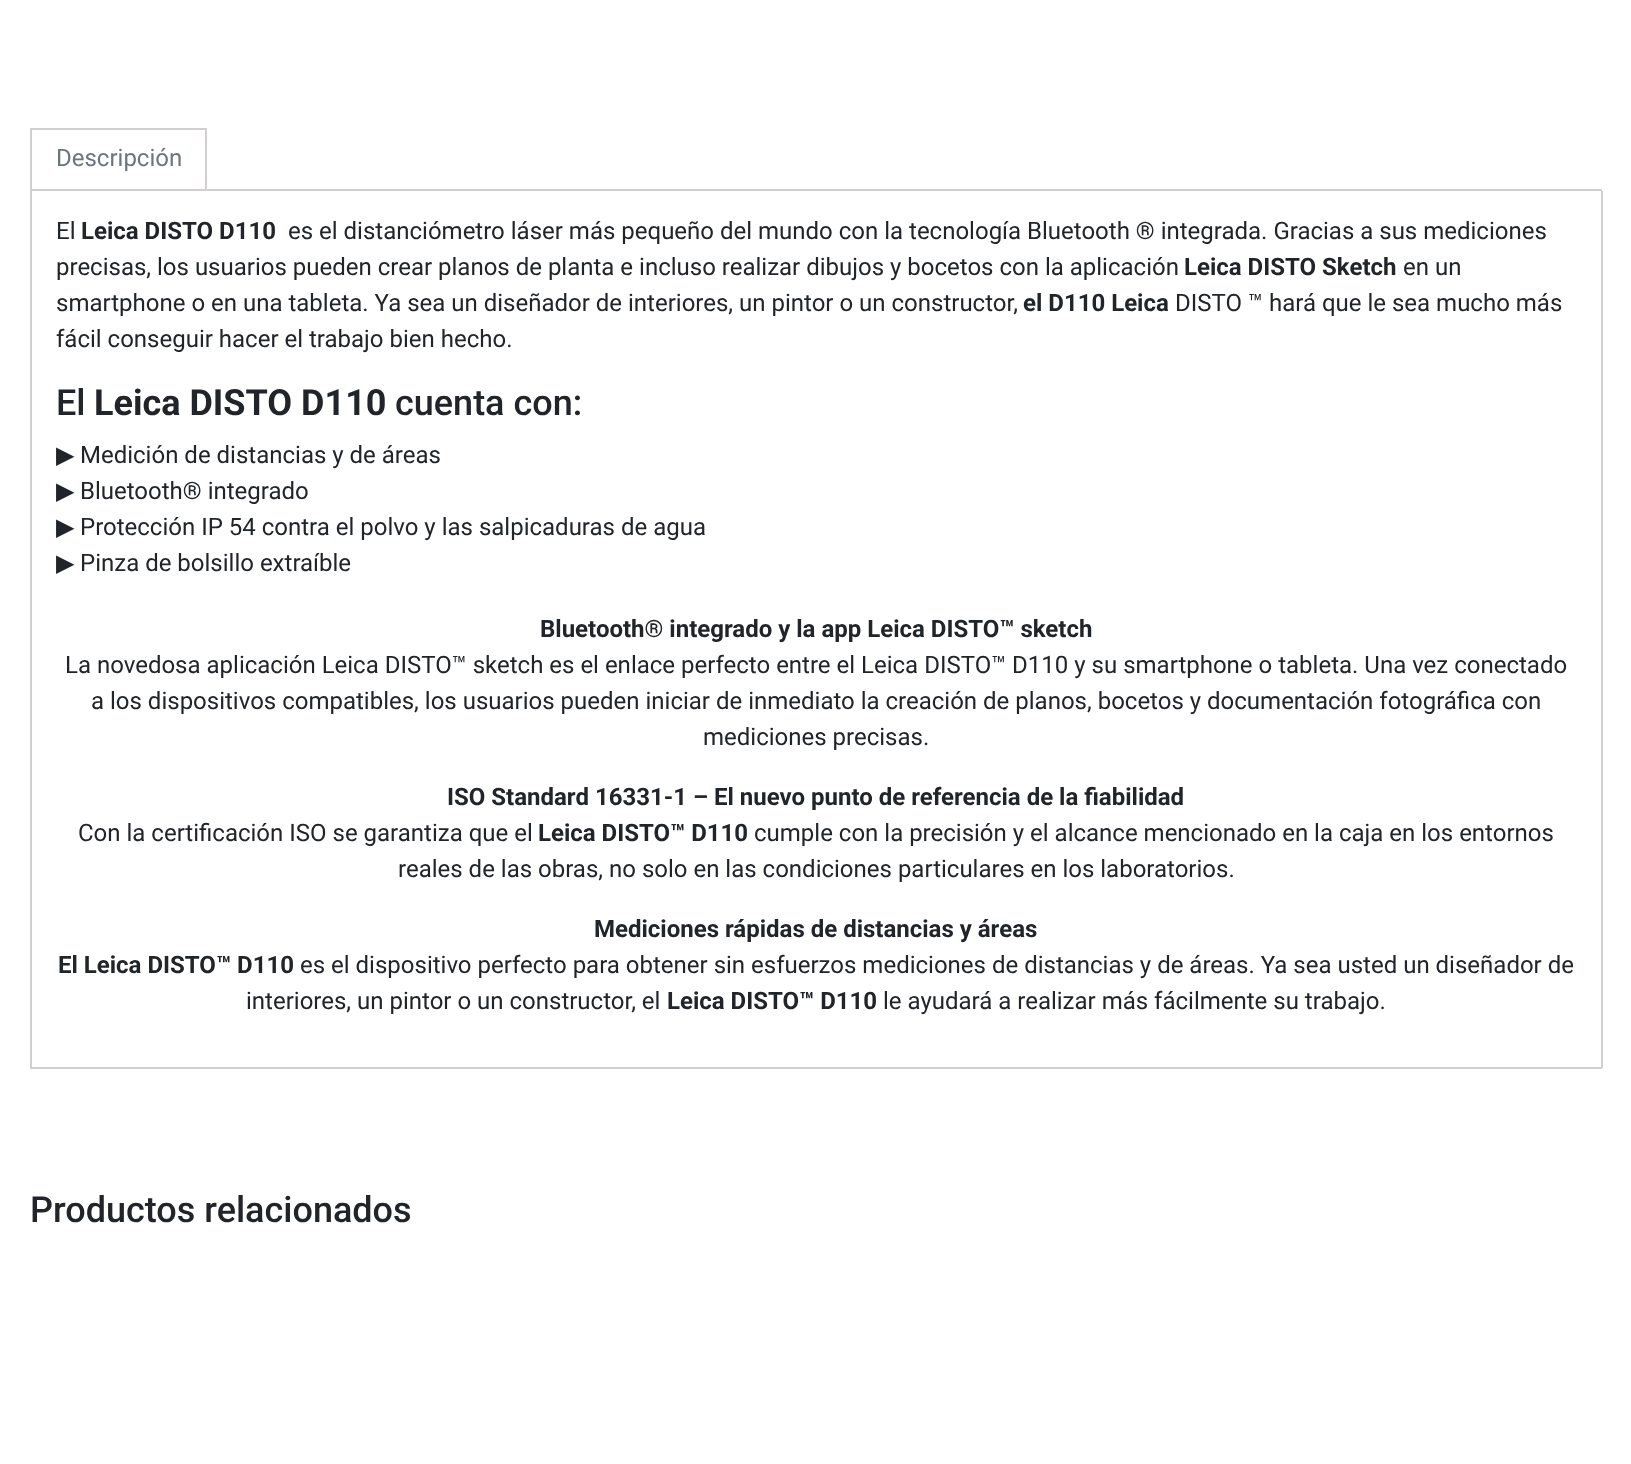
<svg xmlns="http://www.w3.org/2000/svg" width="1631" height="1464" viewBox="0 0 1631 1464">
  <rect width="100%" height="100%" fill="rgb(255,255,255)"/>
  <rect x="31" y="129" width="175" height="61" fill="none" stroke="rgb(211,206,210)" stroke-width="2"/>
  <text x="56" y="166" font-family="Roboto" font-size="24" fill="rgb(108,117,125)">Descripción</text>
  <rect x="207" y="189" width="1395" height="2" fill="rgb(211,206,210)"/>
  <rect x="1601" y="191" width="2" height="877" fill="rgb(211,206,210)"/>
  <rect x="30" y="1067" width="1572" height="2" fill="rgb(211,206,210)"/>
  <rect x="30" y="191" width="2" height="877" fill="rgb(211,206,210)"/>
  <text x="56" y="239" font-family="Roboto" font-size="24" fill="rgb(33,37,41)">El</text>
  <text x="81" y="239" font-family="Roboto" font-size="24" font-weight="bold" fill="rgb(33,37,41)">Leica DISTO D110</text>
  <g font-family="Roboto" font-size="24" fill="rgb(33,37,41)">
    <text x="288" y="239">es el distanciómetro láser más pequeño del mundo con la tecnología Bluetooth ® integrada. Gracias a sus mediciones</text>
    <text x="56" y="275">precisas, los usuarios pueden crear planos de planta e incluso realizar dibujos y bocetos con la aplicación</text>
  </g>
  <text x="1184" y="275" font-family="Roboto" font-size="24" font-weight="bold" fill="rgb(33,37,41)">Leica DISTO Sketch</text>
  <g font-family="Roboto" font-size="24" fill="rgb(33,37,41)">
    <text x="1403" y="275">en un</text>
    <text x="56" y="311">smartphone o en una tableta. Ya sea un diseñador de interiores, un pintor o un constructor,</text>
  </g>
  <text x="1023" y="311" font-family="Roboto" font-size="24" font-weight="bold" fill="rgb(33,37,41)">el D110 Leica</text>
  <g font-family="Roboto" font-size="24" fill="rgb(33,37,41)">
    <text x="1175" y="311">DISTO ™ hará que le sea mucho más</text>
    <text x="56" y="347">fácil conseguir hacer el trabajo bien hecho.</text>
  </g>
  <text x="56" y="415" font-family="Roboto" font-size="36" font-weight="500" fill="rgb(33,37,41)">El</text>
  <text x="94" y="415" font-family="Roboto" font-size="36" font-weight="bold" fill="rgb(33,37,41)">Leica DISTO D110</text>
  <text x="395" y="415" font-family="Roboto" font-size="36" font-weight="500" fill="rgb(33,37,41)">cuenta con:</text>
  <text x="56" y="463" font-family="DejaVu Sans" font-size="24" fill="rgb(33,37,41)">▶</text>
  <text x="80" y="463" font-family="Roboto" font-size="24" fill="rgb(33,37,41)">Medición de distancias y de áreas</text>
  <text x="56" y="499" font-family="DejaVu Sans" font-size="24" fill="rgb(33,37,41)">▶</text>
  <text x="80" y="499" font-family="Roboto" font-size="24" fill="rgb(33,37,41)">Bluetooth® integrado</text>
  <text x="56" y="535" font-family="DejaVu Sans" font-size="24" fill="rgb(33,37,41)">▶</text>
  <text x="80" y="535" font-family="Roboto" font-size="24" fill="rgb(33,37,41)">Protección IP 54 contra el polvo y las salpicaduras de agua</text>
  <text x="56" y="571" font-family="DejaVu Sans" font-size="24" fill="rgb(33,37,41)">▶</text>
  <text x="80" y="571" font-family="Roboto" font-size="24" fill="rgb(33,37,41)">Pinza de bolsillo extraíble</text>
  <text x="540" y="637" font-family="Roboto" font-size="24" font-weight="bold" fill="rgb(33,37,41)">Bluetooth® integrado y la app Leica DISTO™ sketch</text>
  <g font-family="Roboto" font-size="24" fill="rgb(33,37,41)">
    <text x="65" y="673">La novedosa aplicación Leica DISTO™ sketch es el enlace perfecto entre el Leica DISTO™ D110 y su smartphone o tableta. Una vez conectado</text>
    <text x="91" y="709">a los dispositivos compatibles, los usuarios pueden iniciar de inmediato la creación de planos, bocetos y documentación fotográfica con</text>
    <text x="703" y="745">mediciones precisas.</text>
  </g>
  <text x="447" y="805" font-family="Roboto" font-size="24" font-weight="bold" fill="rgb(33,37,41)">ISO Standard 16331-1 – El nuevo punto de referencia de la fiabilidad</text>
  <text x="78" y="841" font-family="Roboto" font-size="24" fill="rgb(33,37,41)">Con la certificación ISO se garantiza que el</text>
  <text x="538" y="841" font-family="Roboto" font-size="24" font-weight="bold" fill="rgb(33,37,41)">Leica DISTO™ D110</text>
  <g font-family="Roboto" font-size="24" fill="rgb(33,37,41)">
    <text x="754" y="841">cumple con la precisión y el alcance mencionado en la caja en los entornos</text>
    <text x="398" y="877">reales de las obras, no solo en las condiciones particulares en los laboratorios.</text>
  </g>
  <g font-family="Roboto" font-size="24" font-weight="bold" fill="rgb(33,37,41)">
    <text x="594" y="937">Mediciones rápidas de distancias y áreas</text>
    <text x="58" y="973">El Leica DISTO™ D110</text>
  </g>
  <g font-family="Roboto" font-size="24" fill="rgb(33,37,41)">
    <text x="300" y="973">es el dispositivo perfecto para obtener sin esfuerzos mediciones de distancias y de áreas. Ya sea usted un diseñador de</text>
    <text x="246" y="1009">interiores, un pintor o un constructor, el</text>
  </g>
  <text x="667" y="1009" font-family="Roboto" font-size="24" font-weight="bold" fill="rgb(33,37,41)">Leica DISTO™ D110</text>
  <text x="883" y="1009" font-family="Roboto" font-size="24" fill="rgb(33,37,41)">le ayudará a realizar más fácilmente su trabajo.</text>
  <text x="30" y="1222" font-family="Roboto" font-size="36" font-weight="500" fill="rgb(33,37,41)">Productos relacionados</text>
</svg>
